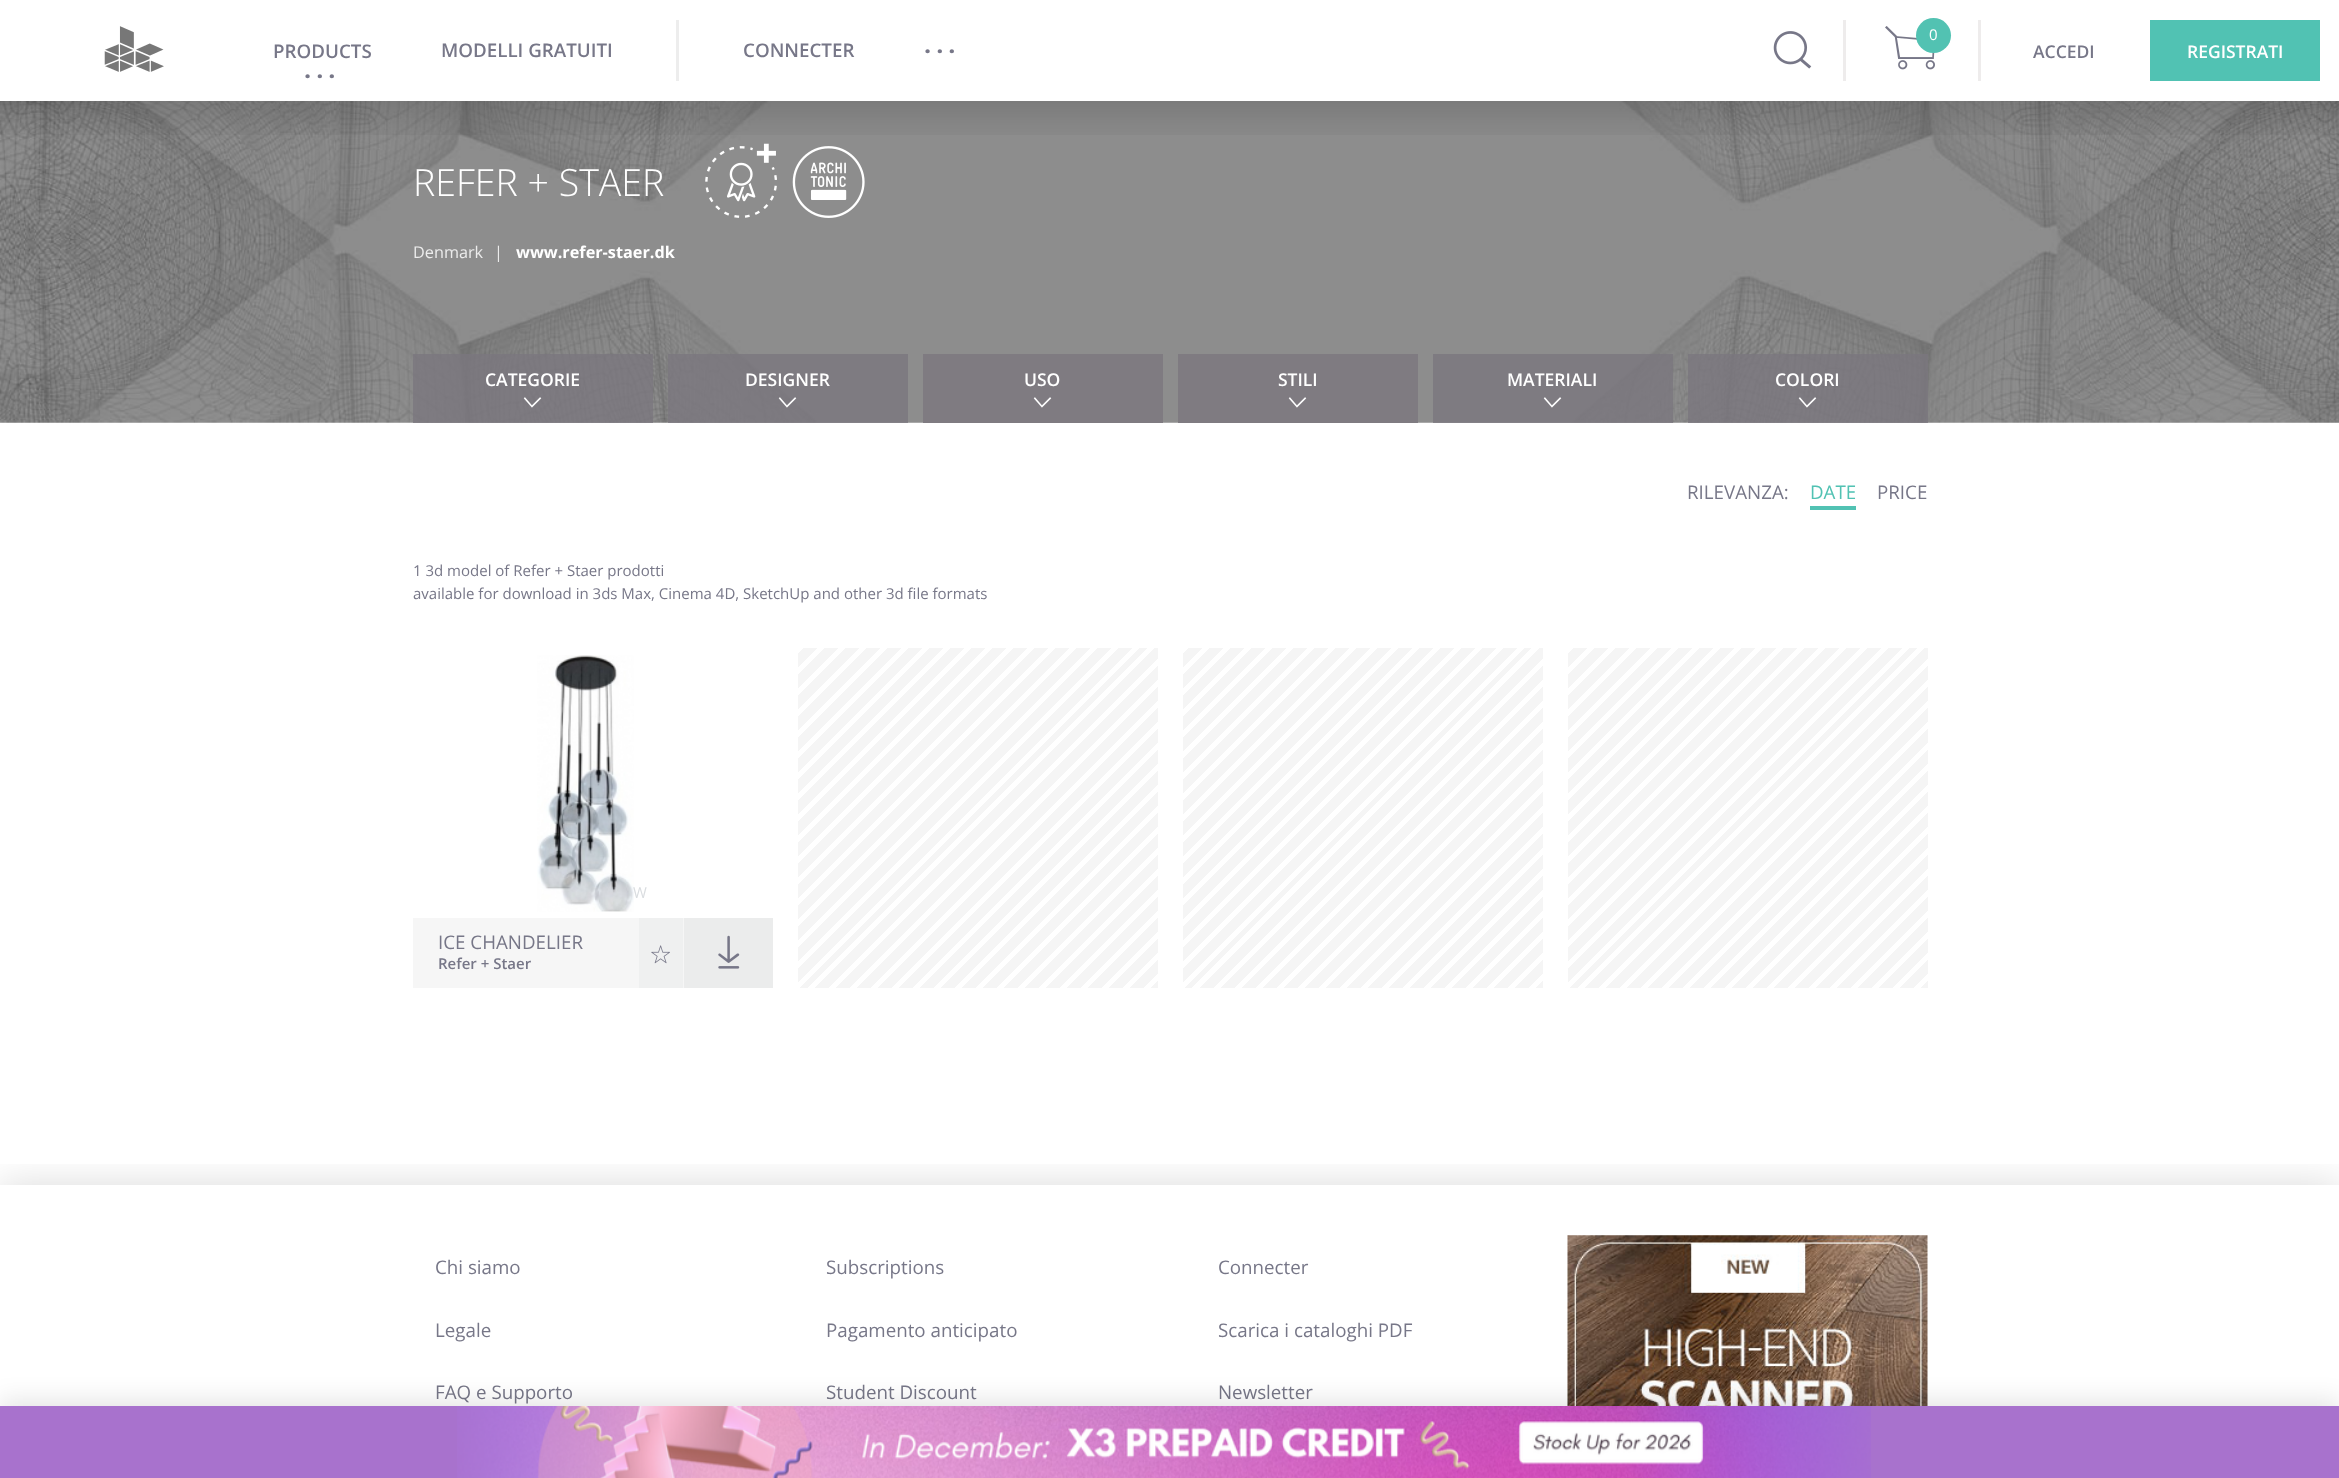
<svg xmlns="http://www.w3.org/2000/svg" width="2339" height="1478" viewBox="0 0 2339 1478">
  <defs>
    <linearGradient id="g1" gradientUnits="userSpaceOnUse" x1="1153" y1="993" x2="802" y2="642"><stop offset="0" stop-color="rgb(245,245,245)"/><stop offset="0.01" stop-color="rgb(245,245,245)"/><stop offset="0.01" stop-color="rgb(255,255,255)"/><stop offset="0.02" stop-color="rgb(255,255,255)"/><stop offset="0.02" stop-color="rgb(245,245,245)"/><stop offset="0.03" stop-color="rgb(245,245,245)"/><stop offset="0.03" stop-color="rgb(255,255,255)"/><stop offset="0.03" stop-color="rgb(255,255,255)"/><stop offset="0.03" stop-color="rgb(245,245,245)"/><stop offset="0.04" stop-color="rgb(245,245,245)"/><stop offset="0.04" stop-color="rgb(255,255,255)"/><stop offset="0.05" stop-color="rgb(255,255,255)"/><stop offset="0.05" stop-color="rgb(245,245,245)"/><stop offset="0.06" stop-color="rgb(245,245,245)"/><stop offset="0.06" stop-color="rgb(255,255,255)"/><stop offset="0.06" stop-color="rgb(255,255,255)"/><stop offset="0.06" stop-color="rgb(245,245,245)"/><stop offset="0.07" stop-color="rgb(245,245,245)"/><stop offset="0.07" stop-color="rgb(255,255,255)"/><stop offset="0.08" stop-color="rgb(255,255,255)"/><stop offset="0.08" stop-color="rgb(245,245,245)"/><stop offset="0.09" stop-color="rgb(245,245,245)"/><stop offset="0.09" stop-color="rgb(255,255,255)"/><stop offset="0.09" stop-color="rgb(255,255,255)"/><stop offset="0.09" stop-color="rgb(245,245,245)"/><stop offset="0.1" stop-color="rgb(245,245,245)"/><stop offset="0.1" stop-color="rgb(255,255,255)"/><stop offset="0.11" stop-color="rgb(255,255,255)"/><stop offset="0.11" stop-color="rgb(245,245,245)"/><stop offset="0.12" stop-color="rgb(245,245,245)"/><stop offset="0.12" stop-color="rgb(255,255,255)"/><stop offset="0.12" stop-color="rgb(255,255,255)"/><stop offset="0.12" stop-color="rgb(245,245,245)"/><stop offset="0.13" stop-color="rgb(245,245,245)"/><stop offset="0.13" stop-color="rgb(255,255,255)"/><stop offset="0.14" stop-color="rgb(255,255,255)"/><stop offset="0.14" stop-color="rgb(245,245,245)"/><stop offset="0.15" stop-color="rgb(245,245,245)"/><stop offset="0.15" stop-color="rgb(255,255,255)"/><stop offset="0.15" stop-color="rgb(255,255,255)"/><stop offset="0.15" stop-color="rgb(245,245,245)"/><stop offset="0.16" stop-color="rgb(245,245,245)"/><stop offset="0.16" stop-color="rgb(255,255,255)"/><stop offset="0.17" stop-color="rgb(255,255,255)"/><stop offset="0.17" stop-color="rgb(245,245,245)"/><stop offset="0.18" stop-color="rgb(245,245,245)"/><stop offset="0.18" stop-color="rgb(255,255,255)"/><stop offset="0.18" stop-color="rgb(255,255,255)"/><stop offset="0.18" stop-color="rgb(245,245,245)"/><stop offset="0.19" stop-color="rgb(245,245,245)"/><stop offset="0.19" stop-color="rgb(255,255,255)"/><stop offset="0.2" stop-color="rgb(255,255,255)"/><stop offset="0.2" stop-color="rgb(245,245,245)"/><stop offset="0.21" stop-color="rgb(245,245,245)"/><stop offset="0.21" stop-color="rgb(255,255,255)"/><stop offset="0.21" stop-color="rgb(255,255,255)"/><stop offset="0.21" stop-color="rgb(245,245,245)"/><stop offset="0.22" stop-color="rgb(245,245,245)"/><stop offset="0.22" stop-color="rgb(255,255,255)"/><stop offset="0.23" stop-color="rgb(255,255,255)"/><stop offset="0.23" stop-color="rgb(245,245,245)"/><stop offset="0.24" stop-color="rgb(245,245,245)"/><stop offset="0.24" stop-color="rgb(255,255,255)"/><stop offset="0.24" stop-color="rgb(255,255,255)"/><stop offset="0.24" stop-color="rgb(245,245,245)"/><stop offset="0.25" stop-color="rgb(245,245,245)"/><stop offset="0.25" stop-color="rgb(255,255,255)"/><stop offset="0.26" stop-color="rgb(255,255,255)"/><stop offset="0.26" stop-color="rgb(245,245,245)"/><stop offset="0.27" stop-color="rgb(245,245,245)"/><stop offset="0.27" stop-color="rgb(255,255,255)"/><stop offset="0.27" stop-color="rgb(255,255,255)"/><stop offset="0.27" stop-color="rgb(245,245,245)"/><stop offset="0.28" stop-color="rgb(245,245,245)"/><stop offset="0.28" stop-color="rgb(255,255,255)"/><stop offset="0.29" stop-color="rgb(255,255,255)"/><stop offset="0.29" stop-color="rgb(245,245,245)"/><stop offset="0.3" stop-color="rgb(245,245,245)"/><stop offset="0.3" stop-color="rgb(255,255,255)"/><stop offset="0.3" stop-color="rgb(255,255,255)"/><stop offset="0.3" stop-color="rgb(245,245,245)"/><stop offset="0.31" stop-color="rgb(245,245,245)"/><stop offset="0.31" stop-color="rgb(255,255,255)"/><stop offset="0.32" stop-color="rgb(255,255,255)"/><stop offset="0.32" stop-color="rgb(245,245,245)"/><stop offset="0.33" stop-color="rgb(245,245,245)"/><stop offset="0.33" stop-color="rgb(255,255,255)"/><stop offset="0.33" stop-color="rgb(255,255,255)"/><stop offset="0.33" stop-color="rgb(245,245,245)"/><stop offset="0.34" stop-color="rgb(245,245,245)"/><stop offset="0.34" stop-color="rgb(255,255,255)"/><stop offset="0.35" stop-color="rgb(255,255,255)"/><stop offset="0.35" stop-color="rgb(245,245,245)"/><stop offset="0.36" stop-color="rgb(245,245,245)"/><stop offset="0.36" stop-color="rgb(255,255,255)"/><stop offset="0.36" stop-color="rgb(255,255,255)"/><stop offset="0.36" stop-color="rgb(245,245,245)"/><stop offset="0.37" stop-color="rgb(245,245,245)"/><stop offset="0.37" stop-color="rgb(255,255,255)"/><stop offset="0.38" stop-color="rgb(255,255,255)"/><stop offset="0.38" stop-color="rgb(245,245,245)"/><stop offset="0.39" stop-color="rgb(245,245,245)"/><stop offset="0.39" stop-color="rgb(255,255,255)"/><stop offset="0.39" stop-color="rgb(255,255,255)"/><stop offset="0.39" stop-color="rgb(245,245,245)"/><stop offset="0.4" stop-color="rgb(245,245,245)"/><stop offset="0.4" stop-color="rgb(255,255,255)"/><stop offset="0.41" stop-color="rgb(255,255,255)"/><stop offset="0.41" stop-color="rgb(245,245,245)"/><stop offset="0.42" stop-color="rgb(245,245,245)"/><stop offset="0.42" stop-color="rgb(255,255,255)"/><stop offset="0.42" stop-color="rgb(255,255,255)"/><stop offset="0.42" stop-color="rgb(245,245,245)"/><stop offset="0.43" stop-color="rgb(245,245,245)"/><stop offset="0.43" stop-color="rgb(255,255,255)"/><stop offset="0.44" stop-color="rgb(255,255,255)"/><stop offset="0.44" stop-color="rgb(245,245,245)"/><stop offset="0.45" stop-color="rgb(245,245,245)"/><stop offset="0.45" stop-color="rgb(255,255,255)"/><stop offset="0.45" stop-color="rgb(255,255,255)"/><stop offset="0.45" stop-color="rgb(245,245,245)"/><stop offset="0.46" stop-color="rgb(245,245,245)"/><stop offset="0.46" stop-color="rgb(255,255,255)"/><stop offset="0.47" stop-color="rgb(255,255,255)"/><stop offset="0.47" stop-color="rgb(245,245,245)"/><stop offset="0.48" stop-color="rgb(245,245,245)"/><stop offset="0.48" stop-color="rgb(255,255,255)"/><stop offset="0.48" stop-color="rgb(255,255,255)"/><stop offset="0.48" stop-color="rgb(245,245,245)"/><stop offset="0.49" stop-color="rgb(245,245,245)"/><stop offset="0.49" stop-color="rgb(255,255,255)"/><stop offset="0.5" stop-color="rgb(255,255,255)"/><stop offset="0.5" stop-color="rgb(245,245,245)"/><stop offset="0.51" stop-color="rgb(245,245,245)"/><stop offset="0.51" stop-color="rgb(255,255,255)"/><stop offset="0.52" stop-color="rgb(255,255,255)"/><stop offset="0.52" stop-color="rgb(245,245,245)"/><stop offset="0.53" stop-color="rgb(245,245,245)"/><stop offset="0.53" stop-color="rgb(255,255,255)"/><stop offset="0.53" stop-color="rgb(255,255,255)"/><stop offset="0.53" stop-color="rgb(245,245,245)"/><stop offset="0.54" stop-color="rgb(245,245,245)"/><stop offset="0.54" stop-color="rgb(255,255,255)"/><stop offset="0.55" stop-color="rgb(255,255,255)"/><stop offset="0.55" stop-color="rgb(245,245,245)"/><stop offset="0.56" stop-color="rgb(245,245,245)"/><stop offset="0.56" stop-color="rgb(255,255,255)"/><stop offset="0.56" stop-color="rgb(255,255,255)"/><stop offset="0.56" stop-color="rgb(245,245,245)"/><stop offset="0.57" stop-color="rgb(245,245,245)"/><stop offset="0.57" stop-color="rgb(255,255,255)"/><stop offset="0.58" stop-color="rgb(255,255,255)"/><stop offset="0.58" stop-color="rgb(245,245,245)"/><stop offset="0.59" stop-color="rgb(245,245,245)"/><stop offset="0.59" stop-color="rgb(255,255,255)"/><stop offset="0.59" stop-color="rgb(255,255,255)"/><stop offset="0.59" stop-color="rgb(245,245,245)"/><stop offset="0.6" stop-color="rgb(245,245,245)"/><stop offset="0.6" stop-color="rgb(255,255,255)"/><stop offset="0.61" stop-color="rgb(255,255,255)"/><stop offset="0.61" stop-color="rgb(245,245,245)"/><stop offset="0.62" stop-color="rgb(245,245,245)"/><stop offset="0.62" stop-color="rgb(255,255,255)"/><stop offset="0.62" stop-color="rgb(255,255,255)"/><stop offset="0.62" stop-color="rgb(245,245,245)"/><stop offset="0.63" stop-color="rgb(245,245,245)"/><stop offset="0.63" stop-color="rgb(255,255,255)"/><stop offset="0.64" stop-color="rgb(255,255,255)"/><stop offset="0.64" stop-color="rgb(245,245,245)"/><stop offset="0.65" stop-color="rgb(245,245,245)"/><stop offset="0.65" stop-color="rgb(255,255,255)"/><stop offset="0.65" stop-color="rgb(255,255,255)"/><stop offset="0.65" stop-color="rgb(245,245,245)"/><stop offset="0.66" stop-color="rgb(245,245,245)"/><stop offset="0.66" stop-color="rgb(255,255,255)"/><stop offset="0.67" stop-color="rgb(255,255,255)"/><stop offset="0.67" stop-color="rgb(245,245,245)"/><stop offset="0.68" stop-color="rgb(245,245,245)"/><stop offset="0.68" stop-color="rgb(255,255,255)"/><stop offset="0.68" stop-color="rgb(255,255,255)"/><stop offset="0.68" stop-color="rgb(245,245,245)"/><stop offset="0.69" stop-color="rgb(245,245,245)"/><stop offset="0.69" stop-color="rgb(255,255,255)"/><stop offset="0.7" stop-color="rgb(255,255,255)"/><stop offset="0.7" stop-color="rgb(245,245,245)"/><stop offset="0.71" stop-color="rgb(245,245,245)"/><stop offset="0.71" stop-color="rgb(255,255,255)"/><stop offset="0.71" stop-color="rgb(255,255,255)"/><stop offset="0.71" stop-color="rgb(245,245,245)"/><stop offset="0.72" stop-color="rgb(245,245,245)"/><stop offset="0.72" stop-color="rgb(255,255,255)"/><stop offset="0.73" stop-color="rgb(255,255,255)"/><stop offset="0.73" stop-color="rgb(245,245,245)"/><stop offset="0.74" stop-color="rgb(245,245,245)"/><stop offset="0.74" stop-color="rgb(255,255,255)"/><stop offset="0.74" stop-color="rgb(255,255,255)"/><stop offset="0.74" stop-color="rgb(245,245,245)"/><stop offset="0.75" stop-color="rgb(245,245,245)"/><stop offset="0.75" stop-color="rgb(255,255,255)"/><stop offset="0.76" stop-color="rgb(255,255,255)"/><stop offset="0.76" stop-color="rgb(245,245,245)"/><stop offset="0.77" stop-color="rgb(245,245,245)"/><stop offset="0.77" stop-color="rgb(255,255,255)"/><stop offset="0.77" stop-color="rgb(255,255,255)"/><stop offset="0.77" stop-color="rgb(245,245,245)"/><stop offset="0.78" stop-color="rgb(245,245,245)"/><stop offset="0.78" stop-color="rgb(255,255,255)"/><stop offset="0.79" stop-color="rgb(255,255,255)"/><stop offset="0.79" stop-color="rgb(245,245,245)"/><stop offset="0.8" stop-color="rgb(245,245,245)"/><stop offset="0.8" stop-color="rgb(255,255,255)"/><stop offset="0.8" stop-color="rgb(255,255,255)"/><stop offset="0.8" stop-color="rgb(245,245,245)"/><stop offset="0.81" stop-color="rgb(245,245,245)"/><stop offset="0.81" stop-color="rgb(255,255,255)"/><stop offset="0.82" stop-color="rgb(255,255,255)"/><stop offset="0.82" stop-color="rgb(245,245,245)"/><stop offset="0.83" stop-color="rgb(245,245,245)"/><stop offset="0.83" stop-color="rgb(255,255,255)"/><stop offset="0.83" stop-color="rgb(255,255,255)"/><stop offset="0.83" stop-color="rgb(245,245,245)"/><stop offset="0.84" stop-color="rgb(245,245,245)"/><stop offset="0.84" stop-color="rgb(255,255,255)"/><stop offset="0.85" stop-color="rgb(255,255,255)"/><stop offset="0.85" stop-color="rgb(245,245,245)"/><stop offset="0.86" stop-color="rgb(245,245,245)"/><stop offset="0.86" stop-color="rgb(255,255,255)"/><stop offset="0.86" stop-color="rgb(255,255,255)"/><stop offset="0.86" stop-color="rgb(245,245,245)"/><stop offset="0.87" stop-color="rgb(245,245,245)"/><stop offset="0.87" stop-color="rgb(255,255,255)"/><stop offset="0.88" stop-color="rgb(255,255,255)"/><stop offset="0.88" stop-color="rgb(245,245,245)"/><stop offset="0.89" stop-color="rgb(245,245,245)"/><stop offset="0.89" stop-color="rgb(255,255,255)"/><stop offset="0.89" stop-color="rgb(255,255,255)"/><stop offset="0.89" stop-color="rgb(245,245,245)"/><stop offset="0.9" stop-color="rgb(245,245,245)"/><stop offset="0.9" stop-color="rgb(255,255,255)"/><stop offset="0.91" stop-color="rgb(255,255,255)"/><stop offset="0.91" stop-color="rgb(245,245,245)"/><stop offset="0.92" stop-color="rgb(245,245,245)"/><stop offset="0.92" stop-color="rgb(255,255,255)"/><stop offset="0.92" stop-color="rgb(255,255,255)"/><stop offset="0.92" stop-color="rgb(245,245,245)"/><stop offset="0.93" stop-color="rgb(245,245,245)"/><stop offset="0.93" stop-color="rgb(255,255,255)"/><stop offset="0.94" stop-color="rgb(255,255,255)"/><stop offset="0.94" stop-color="rgb(245,245,245)"/><stop offset="0.95" stop-color="rgb(245,245,245)"/><stop offset="0.95" stop-color="rgb(255,255,255)"/><stop offset="0.95" stop-color="rgb(255,255,255)"/><stop offset="0.95" stop-color="rgb(245,245,245)"/><stop offset="0.96" stop-color="rgb(245,245,245)"/><stop offset="0.96" stop-color="rgb(255,255,255)"/><stop offset="0.97" stop-color="rgb(255,255,255)"/><stop offset="0.97" stop-color="rgb(245,245,245)"/><stop offset="0.98" stop-color="rgb(245,245,245)"/><stop offset="0.98" stop-color="rgb(255,255,255)"/><stop offset="0.98" stop-color="rgb(255,255,255)"/><stop offset="0.98" stop-color="rgb(245,245,245)"/><stop offset="0.99" stop-color="rgb(245,245,245)"/><stop offset="0.99" stop-color="rgb(255,255,255)"/><stop offset="1" stop-color="rgb(255,255,255)"/></linearGradient>
    <linearGradient id="g2" gradientUnits="userSpaceOnUse" x1="1538" y1="993" x2="1187" y2="642"><stop offset="0" stop-color="rgb(245,245,245)"/><stop offset="0.01" stop-color="rgb(245,245,245)"/><stop offset="0.01" stop-color="rgb(255,255,255)"/><stop offset="0.02" stop-color="rgb(255,255,255)"/><stop offset="0.02" stop-color="rgb(245,245,245)"/><stop offset="0.03" stop-color="rgb(245,245,245)"/><stop offset="0.03" stop-color="rgb(255,255,255)"/><stop offset="0.03" stop-color="rgb(255,255,255)"/><stop offset="0.03" stop-color="rgb(245,245,245)"/><stop offset="0.04" stop-color="rgb(245,245,245)"/><stop offset="0.04" stop-color="rgb(255,255,255)"/><stop offset="0.05" stop-color="rgb(255,255,255)"/><stop offset="0.05" stop-color="rgb(245,245,245)"/><stop offset="0.06" stop-color="rgb(245,245,245)"/><stop offset="0.06" stop-color="rgb(255,255,255)"/><stop offset="0.06" stop-color="rgb(255,255,255)"/><stop offset="0.06" stop-color="rgb(245,245,245)"/><stop offset="0.07" stop-color="rgb(245,245,245)"/><stop offset="0.07" stop-color="rgb(255,255,255)"/><stop offset="0.08" stop-color="rgb(255,255,255)"/><stop offset="0.08" stop-color="rgb(245,245,245)"/><stop offset="0.09" stop-color="rgb(245,245,245)"/><stop offset="0.09" stop-color="rgb(255,255,255)"/><stop offset="0.09" stop-color="rgb(255,255,255)"/><stop offset="0.09" stop-color="rgb(245,245,245)"/><stop offset="0.1" stop-color="rgb(245,245,245)"/><stop offset="0.1" stop-color="rgb(255,255,255)"/><stop offset="0.11" stop-color="rgb(255,255,255)"/><stop offset="0.11" stop-color="rgb(245,245,245)"/><stop offset="0.12" stop-color="rgb(245,245,245)"/><stop offset="0.12" stop-color="rgb(255,255,255)"/><stop offset="0.12" stop-color="rgb(255,255,255)"/><stop offset="0.12" stop-color="rgb(245,245,245)"/><stop offset="0.13" stop-color="rgb(245,245,245)"/><stop offset="0.13" stop-color="rgb(255,255,255)"/><stop offset="0.14" stop-color="rgb(255,255,255)"/><stop offset="0.14" stop-color="rgb(245,245,245)"/><stop offset="0.15" stop-color="rgb(245,245,245)"/><stop offset="0.15" stop-color="rgb(255,255,255)"/><stop offset="0.15" stop-color="rgb(255,255,255)"/><stop offset="0.15" stop-color="rgb(245,245,245)"/><stop offset="0.16" stop-color="rgb(245,245,245)"/><stop offset="0.16" stop-color="rgb(255,255,255)"/><stop offset="0.17" stop-color="rgb(255,255,255)"/><stop offset="0.17" stop-color="rgb(245,245,245)"/><stop offset="0.18" stop-color="rgb(245,245,245)"/><stop offset="0.18" stop-color="rgb(255,255,255)"/><stop offset="0.18" stop-color="rgb(255,255,255)"/><stop offset="0.18" stop-color="rgb(245,245,245)"/><stop offset="0.19" stop-color="rgb(245,245,245)"/><stop offset="0.19" stop-color="rgb(255,255,255)"/><stop offset="0.2" stop-color="rgb(255,255,255)"/><stop offset="0.2" stop-color="rgb(245,245,245)"/><stop offset="0.21" stop-color="rgb(245,245,245)"/><stop offset="0.21" stop-color="rgb(255,255,255)"/><stop offset="0.21" stop-color="rgb(255,255,255)"/><stop offset="0.21" stop-color="rgb(245,245,245)"/><stop offset="0.22" stop-color="rgb(245,245,245)"/><stop offset="0.22" stop-color="rgb(255,255,255)"/><stop offset="0.23" stop-color="rgb(255,255,255)"/><stop offset="0.23" stop-color="rgb(245,245,245)"/><stop offset="0.24" stop-color="rgb(245,245,245)"/><stop offset="0.24" stop-color="rgb(255,255,255)"/><stop offset="0.24" stop-color="rgb(255,255,255)"/><stop offset="0.24" stop-color="rgb(245,245,245)"/><stop offset="0.25" stop-color="rgb(245,245,245)"/><stop offset="0.25" stop-color="rgb(255,255,255)"/><stop offset="0.26" stop-color="rgb(255,255,255)"/><stop offset="0.26" stop-color="rgb(245,245,245)"/><stop offset="0.27" stop-color="rgb(245,245,245)"/><stop offset="0.27" stop-color="rgb(255,255,255)"/><stop offset="0.27" stop-color="rgb(255,255,255)"/><stop offset="0.27" stop-color="rgb(245,245,245)"/><stop offset="0.28" stop-color="rgb(245,245,245)"/><stop offset="0.28" stop-color="rgb(255,255,255)"/><stop offset="0.29" stop-color="rgb(255,255,255)"/><stop offset="0.29" stop-color="rgb(245,245,245)"/><stop offset="0.3" stop-color="rgb(245,245,245)"/><stop offset="0.3" stop-color="rgb(255,255,255)"/><stop offset="0.3" stop-color="rgb(255,255,255)"/><stop offset="0.3" stop-color="rgb(245,245,245)"/><stop offset="0.31" stop-color="rgb(245,245,245)"/><stop offset="0.31" stop-color="rgb(255,255,255)"/><stop offset="0.32" stop-color="rgb(255,255,255)"/><stop offset="0.32" stop-color="rgb(245,245,245)"/><stop offset="0.33" stop-color="rgb(245,245,245)"/><stop offset="0.33" stop-color="rgb(255,255,255)"/><stop offset="0.33" stop-color="rgb(255,255,255)"/><stop offset="0.33" stop-color="rgb(245,245,245)"/><stop offset="0.34" stop-color="rgb(245,245,245)"/><stop offset="0.34" stop-color="rgb(255,255,255)"/><stop offset="0.35" stop-color="rgb(255,255,255)"/><stop offset="0.35" stop-color="rgb(245,245,245)"/><stop offset="0.36" stop-color="rgb(245,245,245)"/><stop offset="0.36" stop-color="rgb(255,255,255)"/><stop offset="0.36" stop-color="rgb(255,255,255)"/><stop offset="0.36" stop-color="rgb(245,245,245)"/><stop offset="0.37" stop-color="rgb(245,245,245)"/><stop offset="0.37" stop-color="rgb(255,255,255)"/><stop offset="0.38" stop-color="rgb(255,255,255)"/><stop offset="0.38" stop-color="rgb(245,245,245)"/><stop offset="0.39" stop-color="rgb(245,245,245)"/><stop offset="0.39" stop-color="rgb(255,255,255)"/><stop offset="0.39" stop-color="rgb(255,255,255)"/><stop offset="0.39" stop-color="rgb(245,245,245)"/><stop offset="0.4" stop-color="rgb(245,245,245)"/><stop offset="0.4" stop-color="rgb(255,255,255)"/><stop offset="0.41" stop-color="rgb(255,255,255)"/><stop offset="0.41" stop-color="rgb(245,245,245)"/><stop offset="0.42" stop-color="rgb(245,245,245)"/><stop offset="0.42" stop-color="rgb(255,255,255)"/><stop offset="0.42" stop-color="rgb(255,255,255)"/><stop offset="0.42" stop-color="rgb(245,245,245)"/><stop offset="0.43" stop-color="rgb(245,245,245)"/><stop offset="0.43" stop-color="rgb(255,255,255)"/><stop offset="0.44" stop-color="rgb(255,255,255)"/><stop offset="0.44" stop-color="rgb(245,245,245)"/><stop offset="0.45" stop-color="rgb(245,245,245)"/><stop offset="0.45" stop-color="rgb(255,255,255)"/><stop offset="0.45" stop-color="rgb(255,255,255)"/><stop offset="0.45" stop-color="rgb(245,245,245)"/><stop offset="0.46" stop-color="rgb(245,245,245)"/><stop offset="0.46" stop-color="rgb(255,255,255)"/><stop offset="0.47" stop-color="rgb(255,255,255)"/><stop offset="0.47" stop-color="rgb(245,245,245)"/><stop offset="0.48" stop-color="rgb(245,245,245)"/><stop offset="0.48" stop-color="rgb(255,255,255)"/><stop offset="0.48" stop-color="rgb(255,255,255)"/><stop offset="0.48" stop-color="rgb(245,245,245)"/><stop offset="0.49" stop-color="rgb(245,245,245)"/><stop offset="0.49" stop-color="rgb(255,255,255)"/><stop offset="0.5" stop-color="rgb(255,255,255)"/><stop offset="0.5" stop-color="rgb(245,245,245)"/><stop offset="0.51" stop-color="rgb(245,245,245)"/><stop offset="0.51" stop-color="rgb(255,255,255)"/><stop offset="0.52" stop-color="rgb(255,255,255)"/><stop offset="0.52" stop-color="rgb(245,245,245)"/><stop offset="0.53" stop-color="rgb(245,245,245)"/><stop offset="0.53" stop-color="rgb(255,255,255)"/><stop offset="0.53" stop-color="rgb(255,255,255)"/><stop offset="0.53" stop-color="rgb(245,245,245)"/><stop offset="0.54" stop-color="rgb(245,245,245)"/><stop offset="0.54" stop-color="rgb(255,255,255)"/><stop offset="0.55" stop-color="rgb(255,255,255)"/><stop offset="0.55" stop-color="rgb(245,245,245)"/><stop offset="0.56" stop-color="rgb(245,245,245)"/><stop offset="0.56" stop-color="rgb(255,255,255)"/><stop offset="0.56" stop-color="rgb(255,255,255)"/><stop offset="0.56" stop-color="rgb(245,245,245)"/><stop offset="0.57" stop-color="rgb(245,245,245)"/><stop offset="0.57" stop-color="rgb(255,255,255)"/><stop offset="0.58" stop-color="rgb(255,255,255)"/><stop offset="0.58" stop-color="rgb(245,245,245)"/><stop offset="0.59" stop-color="rgb(245,245,245)"/><stop offset="0.59" stop-color="rgb(255,255,255)"/><stop offset="0.59" stop-color="rgb(255,255,255)"/><stop offset="0.59" stop-color="rgb(245,245,245)"/><stop offset="0.6" stop-color="rgb(245,245,245)"/><stop offset="0.6" stop-color="rgb(255,255,255)"/><stop offset="0.61" stop-color="rgb(255,255,255)"/><stop offset="0.61" stop-color="rgb(245,245,245)"/><stop offset="0.62" stop-color="rgb(245,245,245)"/><stop offset="0.62" stop-color="rgb(255,255,255)"/><stop offset="0.62" stop-color="rgb(255,255,255)"/><stop offset="0.62" stop-color="rgb(245,245,245)"/><stop offset="0.63" stop-color="rgb(245,245,245)"/><stop offset="0.63" stop-color="rgb(255,255,255)"/><stop offset="0.64" stop-color="rgb(255,255,255)"/><stop offset="0.64" stop-color="rgb(245,245,245)"/><stop offset="0.65" stop-color="rgb(245,245,245)"/><stop offset="0.65" stop-color="rgb(255,255,255)"/><stop offset="0.65" stop-color="rgb(255,255,255)"/><stop offset="0.65" stop-color="rgb(245,245,245)"/><stop offset="0.66" stop-color="rgb(245,245,245)"/><stop offset="0.66" stop-color="rgb(255,255,255)"/><stop offset="0.67" stop-color="rgb(255,255,255)"/><stop offset="0.67" stop-color="rgb(245,245,245)"/><stop offset="0.68" stop-color="rgb(245,245,245)"/><stop offset="0.68" stop-color="rgb(255,255,255)"/><stop offset="0.68" stop-color="rgb(255,255,255)"/><stop offset="0.68" stop-color="rgb(245,245,245)"/><stop offset="0.69" stop-color="rgb(245,245,245)"/><stop offset="0.69" stop-color="rgb(255,255,255)"/><stop offset="0.7" stop-color="rgb(255,255,255)"/><stop offset="0.7" stop-color="rgb(245,245,245)"/><stop offset="0.71" stop-color="rgb(245,245,245)"/><stop offset="0.71" stop-color="rgb(255,255,255)"/><stop offset="0.71" stop-color="rgb(255,255,255)"/><stop offset="0.71" stop-color="rgb(245,245,245)"/><stop offset="0.72" stop-color="rgb(245,245,245)"/><stop offset="0.72" stop-color="rgb(255,255,255)"/><stop offset="0.73" stop-color="rgb(255,255,255)"/><stop offset="0.73" stop-color="rgb(245,245,245)"/><stop offset="0.74" stop-color="rgb(245,245,245)"/><stop offset="0.74" stop-color="rgb(255,255,255)"/><stop offset="0.74" stop-color="rgb(255,255,255)"/><stop offset="0.74" stop-color="rgb(245,245,245)"/><stop offset="0.75" stop-color="rgb(245,245,245)"/><stop offset="0.75" stop-color="rgb(255,255,255)"/><stop offset="0.76" stop-color="rgb(255,255,255)"/><stop offset="0.76" stop-color="rgb(245,245,245)"/><stop offset="0.77" stop-color="rgb(245,245,245)"/><stop offset="0.77" stop-color="rgb(255,255,255)"/><stop offset="0.77" stop-color="rgb(255,255,255)"/><stop offset="0.77" stop-color="rgb(245,245,245)"/><stop offset="0.78" stop-color="rgb(245,245,245)"/><stop offset="0.78" stop-color="rgb(255,255,255)"/><stop offset="0.79" stop-color="rgb(255,255,255)"/><stop offset="0.79" stop-color="rgb(245,245,245)"/><stop offset="0.8" stop-color="rgb(245,245,245)"/><stop offset="0.8" stop-color="rgb(255,255,255)"/><stop offset="0.8" stop-color="rgb(255,255,255)"/><stop offset="0.8" stop-color="rgb(245,245,245)"/><stop offset="0.81" stop-color="rgb(245,245,245)"/><stop offset="0.81" stop-color="rgb(255,255,255)"/><stop offset="0.82" stop-color="rgb(255,255,255)"/><stop offset="0.82" stop-color="rgb(245,245,245)"/><stop offset="0.83" stop-color="rgb(245,245,245)"/><stop offset="0.83" stop-color="rgb(255,255,255)"/><stop offset="0.83" stop-color="rgb(255,255,255)"/><stop offset="0.83" stop-color="rgb(245,245,245)"/><stop offset="0.84" stop-color="rgb(245,245,245)"/><stop offset="0.84" stop-color="rgb(255,255,255)"/><stop offset="0.85" stop-color="rgb(255,255,255)"/><stop offset="0.85" stop-color="rgb(245,245,245)"/><stop offset="0.86" stop-color="rgb(245,245,245)"/><stop offset="0.86" stop-color="rgb(255,255,255)"/><stop offset="0.86" stop-color="rgb(255,255,255)"/><stop offset="0.86" stop-color="rgb(245,245,245)"/><stop offset="0.87" stop-color="rgb(245,245,245)"/><stop offset="0.87" stop-color="rgb(255,255,255)"/><stop offset="0.88" stop-color="rgb(255,255,255)"/><stop offset="0.88" stop-color="rgb(245,245,245)"/><stop offset="0.89" stop-color="rgb(245,245,245)"/><stop offset="0.89" stop-color="rgb(255,255,255)"/><stop offset="0.89" stop-color="rgb(255,255,255)"/><stop offset="0.89" stop-color="rgb(245,245,245)"/><stop offset="0.9" stop-color="rgb(245,245,245)"/><stop offset="0.9" stop-color="rgb(255,255,255)"/><stop offset="0.91" stop-color="rgb(255,255,255)"/><stop offset="0.91" stop-color="rgb(245,245,245)"/><stop offset="0.92" stop-color="rgb(245,245,245)"/><stop offset="0.92" stop-color="rgb(255,255,255)"/><stop offset="0.92" stop-color="rgb(255,255,255)"/><stop offset="0.92" stop-color="rgb(245,245,245)"/><stop offset="0.93" stop-color="rgb(245,245,245)"/><stop offset="0.93" stop-color="rgb(255,255,255)"/><stop offset="0.94" stop-color="rgb(255,255,255)"/><stop offset="0.94" stop-color="rgb(245,245,245)"/><stop offset="0.95" stop-color="rgb(245,245,245)"/><stop offset="0.95" stop-color="rgb(255,255,255)"/><stop offset="0.95" stop-color="rgb(255,255,255)"/><stop offset="0.95" stop-color="rgb(245,245,245)"/><stop offset="0.96" stop-color="rgb(245,245,245)"/><stop offset="0.96" stop-color="rgb(255,255,255)"/><stop offset="0.97" stop-color="rgb(255,255,255)"/><stop offset="0.97" stop-color="rgb(245,245,245)"/><stop offset="0.98" stop-color="rgb(245,245,245)"/><stop offset="0.98" stop-color="rgb(255,255,255)"/><stop offset="0.98" stop-color="rgb(255,255,255)"/><stop offset="0.98" stop-color="rgb(245,245,245)"/><stop offset="0.99" stop-color="rgb(245,245,245)"/><stop offset="0.99" stop-color="rgb(255,255,255)"/><stop offset="1" stop-color="rgb(255,255,255)"/></linearGradient>
    <linearGradient id="g3" gradientUnits="userSpaceOnUse" x1="1923" y1="993" x2="1572" y2="642"><stop offset="0" stop-color="rgb(245,245,245)"/><stop offset="0.01" stop-color="rgb(245,245,245)"/><stop offset="0.01" stop-color="rgb(255,255,255)"/><stop offset="0.02" stop-color="rgb(255,255,255)"/><stop offset="0.02" stop-color="rgb(245,245,245)"/><stop offset="0.03" stop-color="rgb(245,245,245)"/><stop offset="0.03" stop-color="rgb(255,255,255)"/><stop offset="0.03" stop-color="rgb(255,255,255)"/><stop offset="0.03" stop-color="rgb(245,245,245)"/><stop offset="0.04" stop-color="rgb(245,245,245)"/><stop offset="0.04" stop-color="rgb(255,255,255)"/><stop offset="0.05" stop-color="rgb(255,255,255)"/><stop offset="0.05" stop-color="rgb(245,245,245)"/><stop offset="0.06" stop-color="rgb(245,245,245)"/><stop offset="0.06" stop-color="rgb(255,255,255)"/><stop offset="0.06" stop-color="rgb(255,255,255)"/><stop offset="0.06" stop-color="rgb(245,245,245)"/><stop offset="0.07" stop-color="rgb(245,245,245)"/><stop offset="0.07" stop-color="rgb(255,255,255)"/><stop offset="0.08" stop-color="rgb(255,255,255)"/><stop offset="0.08" stop-color="rgb(245,245,245)"/><stop offset="0.09" stop-color="rgb(245,245,245)"/><stop offset="0.09" stop-color="rgb(255,255,255)"/><stop offset="0.09" stop-color="rgb(255,255,255)"/><stop offset="0.09" stop-color="rgb(245,245,245)"/><stop offset="0.1" stop-color="rgb(245,245,245)"/><stop offset="0.1" stop-color="rgb(255,255,255)"/><stop offset="0.11" stop-color="rgb(255,255,255)"/><stop offset="0.11" stop-color="rgb(245,245,245)"/><stop offset="0.12" stop-color="rgb(245,245,245)"/><stop offset="0.12" stop-color="rgb(255,255,255)"/><stop offset="0.12" stop-color="rgb(255,255,255)"/><stop offset="0.12" stop-color="rgb(245,245,245)"/><stop offset="0.13" stop-color="rgb(245,245,245)"/><stop offset="0.13" stop-color="rgb(255,255,255)"/><stop offset="0.14" stop-color="rgb(255,255,255)"/><stop offset="0.14" stop-color="rgb(245,245,245)"/><stop offset="0.15" stop-color="rgb(245,245,245)"/><stop offset="0.15" stop-color="rgb(255,255,255)"/><stop offset="0.15" stop-color="rgb(255,255,255)"/><stop offset="0.15" stop-color="rgb(245,245,245)"/><stop offset="0.16" stop-color="rgb(245,245,245)"/><stop offset="0.16" stop-color="rgb(255,255,255)"/><stop offset="0.17" stop-color="rgb(255,255,255)"/><stop offset="0.17" stop-color="rgb(245,245,245)"/><stop offset="0.18" stop-color="rgb(245,245,245)"/><stop offset="0.18" stop-color="rgb(255,255,255)"/><stop offset="0.18" stop-color="rgb(255,255,255)"/><stop offset="0.18" stop-color="rgb(245,245,245)"/><stop offset="0.19" stop-color="rgb(245,245,245)"/><stop offset="0.19" stop-color="rgb(255,255,255)"/><stop offset="0.2" stop-color="rgb(255,255,255)"/><stop offset="0.2" stop-color="rgb(245,245,245)"/><stop offset="0.21" stop-color="rgb(245,245,245)"/><stop offset="0.21" stop-color="rgb(255,255,255)"/><stop offset="0.21" stop-color="rgb(255,255,255)"/><stop offset="0.21" stop-color="rgb(245,245,245)"/><stop offset="0.22" stop-color="rgb(245,245,245)"/><stop offset="0.22" stop-color="rgb(255,255,255)"/><stop offset="0.23" stop-color="rgb(255,255,255)"/><stop offset="0.23" stop-color="rgb(245,245,245)"/><stop offset="0.24" stop-color="rgb(245,245,245)"/><stop offset="0.24" stop-color="rgb(255,255,255)"/><stop offset="0.24" stop-color="rgb(255,255,255)"/><stop offset="0.24" stop-color="rgb(245,245,245)"/><stop offset="0.25" stop-color="rgb(245,245,245)"/><stop offset="0.25" stop-color="rgb(255,255,255)"/><stop offset="0.26" stop-color="rgb(255,255,255)"/><stop offset="0.26" stop-color="rgb(245,245,245)"/><stop offset="0.27" stop-color="rgb(245,245,245)"/><stop offset="0.27" stop-color="rgb(255,255,255)"/><stop offset="0.27" stop-color="rgb(255,255,255)"/><stop offset="0.27" stop-color="rgb(245,245,245)"/><stop offset="0.28" stop-color="rgb(245,245,245)"/><stop offset="0.28" stop-color="rgb(255,255,255)"/><stop offset="0.29" stop-color="rgb(255,255,255)"/><stop offset="0.29" stop-color="rgb(245,245,245)"/><stop offset="0.3" stop-color="rgb(245,245,245)"/><stop offset="0.3" stop-color="rgb(255,255,255)"/><stop offset="0.3" stop-color="rgb(255,255,255)"/><stop offset="0.3" stop-color="rgb(245,245,245)"/><stop offset="0.31" stop-color="rgb(245,245,245)"/><stop offset="0.31" stop-color="rgb(255,255,255)"/><stop offset="0.32" stop-color="rgb(255,255,255)"/><stop offset="0.32" stop-color="rgb(245,245,245)"/><stop offset="0.33" stop-color="rgb(245,245,245)"/><stop offset="0.33" stop-color="rgb(255,255,255)"/><stop offset="0.33" stop-color="rgb(255,255,255)"/><stop offset="0.33" stop-color="rgb(245,245,245)"/><stop offset="0.34" stop-color="rgb(245,245,245)"/><stop offset="0.34" stop-color="rgb(255,255,255)"/><stop offset="0.35" stop-color="rgb(255,255,255)"/><stop offset="0.35" stop-color="rgb(245,245,245)"/><stop offset="0.36" stop-color="rgb(245,245,245)"/><stop offset="0.36" stop-color="rgb(255,255,255)"/><stop offset="0.36" stop-color="rgb(255,255,255)"/><stop offset="0.36" stop-color="rgb(245,245,245)"/><stop offset="0.37" stop-color="rgb(245,245,245)"/><stop offset="0.37" stop-color="rgb(255,255,255)"/><stop offset="0.38" stop-color="rgb(255,255,255)"/><stop offset="0.38" stop-color="rgb(245,245,245)"/><stop offset="0.39" stop-color="rgb(245,245,245)"/><stop offset="0.39" stop-color="rgb(255,255,255)"/><stop offset="0.39" stop-color="rgb(255,255,255)"/><stop offset="0.39" stop-color="rgb(245,245,245)"/><stop offset="0.4" stop-color="rgb(245,245,245)"/><stop offset="0.4" stop-color="rgb(255,255,255)"/><stop offset="0.41" stop-color="rgb(255,255,255)"/><stop offset="0.41" stop-color="rgb(245,245,245)"/><stop offset="0.42" stop-color="rgb(245,245,245)"/><stop offset="0.42" stop-color="rgb(255,255,255)"/><stop offset="0.42" stop-color="rgb(255,255,255)"/><stop offset="0.42" stop-color="rgb(245,245,245)"/><stop offset="0.43" stop-color="rgb(245,245,245)"/><stop offset="0.43" stop-color="rgb(255,255,255)"/><stop offset="0.44" stop-color="rgb(255,255,255)"/><stop offset="0.44" stop-color="rgb(245,245,245)"/><stop offset="0.45" stop-color="rgb(245,245,245)"/><stop offset="0.45" stop-color="rgb(255,255,255)"/><stop offset="0.45" stop-color="rgb(255,255,255)"/><stop offset="0.45" stop-color="rgb(245,245,245)"/><stop offset="0.46" stop-color="rgb(245,245,245)"/><stop offset="0.46" stop-color="rgb(255,255,255)"/><stop offset="0.47" stop-color="rgb(255,255,255)"/><stop offset="0.47" stop-color="rgb(245,245,245)"/><stop offset="0.48" stop-color="rgb(245,245,245)"/><stop offset="0.48" stop-color="rgb(255,255,255)"/><stop offset="0.48" stop-color="rgb(255,255,255)"/><stop offset="0.48" stop-color="rgb(245,245,245)"/><stop offset="0.49" stop-color="rgb(245,245,245)"/><stop offset="0.49" stop-color="rgb(255,255,255)"/><stop offset="0.5" stop-color="rgb(255,255,255)"/><stop offset="0.5" stop-color="rgb(245,245,245)"/><stop offset="0.51" stop-color="rgb(245,245,245)"/><stop offset="0.51" stop-color="rgb(255,255,255)"/><stop offset="0.52" stop-color="rgb(255,255,255)"/><stop offset="0.52" stop-color="rgb(245,245,245)"/><stop offset="0.53" stop-color="rgb(245,245,245)"/><stop offset="0.53" stop-color="rgb(255,255,255)"/><stop offset="0.53" stop-color="rgb(255,255,255)"/><stop offset="0.53" stop-color="rgb(245,245,245)"/><stop offset="0.54" stop-color="rgb(245,245,245)"/><stop offset="0.54" stop-color="rgb(255,255,255)"/><stop offset="0.55" stop-color="rgb(255,255,255)"/><stop offset="0.55" stop-color="rgb(245,245,245)"/><stop offset="0.56" stop-color="rgb(245,245,245)"/><stop offset="0.56" stop-color="rgb(255,255,255)"/><stop offset="0.56" stop-color="rgb(255,255,255)"/><stop offset="0.56" stop-color="rgb(245,245,245)"/><stop offset="0.57" stop-color="rgb(245,245,245)"/><stop offset="0.57" stop-color="rgb(255,255,255)"/><stop offset="0.58" stop-color="rgb(255,255,255)"/><stop offset="0.58" stop-color="rgb(245,245,245)"/><stop offset="0.59" stop-color="rgb(245,245,245)"/><stop offset="0.59" stop-color="rgb(255,255,255)"/><stop offset="0.59" stop-color="rgb(255,255,255)"/><stop offset="0.59" stop-color="rgb(245,245,245)"/><stop offset="0.6" stop-color="rgb(245,245,245)"/><stop offset="0.6" stop-color="rgb(255,255,255)"/><stop offset="0.61" stop-color="rgb(255,255,255)"/><stop offset="0.61" stop-color="rgb(245,245,245)"/><stop offset="0.62" stop-color="rgb(245,245,245)"/><stop offset="0.62" stop-color="rgb(255,255,255)"/><stop offset="0.62" stop-color="rgb(255,255,255)"/><stop offset="0.62" stop-color="rgb(245,245,245)"/><stop offset="0.63" stop-color="rgb(245,245,245)"/><stop offset="0.63" stop-color="rgb(255,255,255)"/><stop offset="0.64" stop-color="rgb(255,255,255)"/><stop offset="0.64" stop-color="rgb(245,245,245)"/><stop offset="0.65" stop-color="rgb(245,245,245)"/><stop offset="0.65" stop-color="rgb(255,255,255)"/><stop offset="0.65" stop-color="rgb(255,255,255)"/><stop offset="0.65" stop-color="rgb(245,245,245)"/><stop offset="0.66" stop-color="rgb(245,245,245)"/><stop offset="0.66" stop-color="rgb(255,255,255)"/><stop offset="0.67" stop-color="rgb(255,255,255)"/><stop offset="0.67" stop-color="rgb(245,245,245)"/><stop offset="0.68" stop-color="rgb(245,245,245)"/><stop offset="0.68" stop-color="rgb(255,255,255)"/><stop offset="0.68" stop-color="rgb(255,255,255)"/><stop offset="0.68" stop-color="rgb(245,245,245)"/><stop offset="0.69" stop-color="rgb(245,245,245)"/><stop offset="0.69" stop-color="rgb(255,255,255)"/><stop offset="0.7" stop-color="rgb(255,255,255)"/><stop offset="0.7" stop-color="rgb(245,245,245)"/><stop offset="0.71" stop-color="rgb(245,245,245)"/><stop offset="0.71" stop-color="rgb(255,255,255)"/><stop offset="0.71" stop-color="rgb(255,255,255)"/><stop offset="0.71" stop-color="rgb(245,245,245)"/><stop offset="0.72" stop-color="rgb(245,245,245)"/><stop offset="0.72" stop-color="rgb(255,255,255)"/><stop offset="0.73" stop-color="rgb(255,255,255)"/><stop offset="0.73" stop-color="rgb(245,245,245)"/><stop offset="0.74" stop-color="rgb(245,245,245)"/><stop offset="0.74" stop-color="rgb(255,255,255)"/><stop offset="0.74" stop-color="rgb(255,255,255)"/><stop offset="0.74" stop-color="rgb(245,245,245)"/><stop offset="0.75" stop-color="rgb(245,245,245)"/><stop offset="0.75" stop-color="rgb(255,255,255)"/><stop offset="0.76" stop-color="rgb(255,255,255)"/><stop offset="0.76" stop-color="rgb(245,245,245)"/><stop offset="0.77" stop-color="rgb(245,245,245)"/><stop offset="0.77" stop-color="rgb(255,255,255)"/><stop offset="0.77" stop-color="rgb(255,255,255)"/><stop offset="0.77" stop-color="rgb(245,245,245)"/><stop offset="0.78" stop-color="rgb(245,245,245)"/><stop offset="0.78" stop-color="rgb(255,255,255)"/><stop offset="0.79" stop-color="rgb(255,255,255)"/><stop offset="0.79" stop-color="rgb(245,245,245)"/><stop offset="0.8" stop-color="rgb(245,245,245)"/><stop offset="0.8" stop-color="rgb(255,255,255)"/><stop offset="0.8" stop-color="rgb(255,255,255)"/><stop offset="0.8" stop-color="rgb(245,245,245)"/><stop offset="0.81" stop-color="rgb(245,245,245)"/><stop offset="0.81" stop-color="rgb(255,255,255)"/><stop offset="0.82" stop-color="rgb(255,255,255)"/><stop offset="0.82" stop-color="rgb(245,245,245)"/><stop offset="0.83" stop-color="rgb(245,245,245)"/><stop offset="0.83" stop-color="rgb(255,255,255)"/><stop offset="0.83" stop-color="rgb(255,255,255)"/><stop offset="0.83" stop-color="rgb(245,245,245)"/><stop offset="0.84" stop-color="rgb(245,245,245)"/><stop offset="0.84" stop-color="rgb(255,255,255)"/><stop offset="0.85" stop-color="rgb(255,255,255)"/><stop offset="0.85" stop-color="rgb(245,245,245)"/><stop offset="0.86" stop-color="rgb(245,245,245)"/><stop offset="0.86" stop-color="rgb(255,255,255)"/><stop offset="0.86" stop-color="rgb(255,255,255)"/><stop offset="0.86" stop-color="rgb(245,245,245)"/><stop offset="0.87" stop-color="rgb(245,245,245)"/><stop offset="0.87" stop-color="rgb(255,255,255)"/><stop offset="0.88" stop-color="rgb(255,255,255)"/><stop offset="0.88" stop-color="rgb(245,245,245)"/><stop offset="0.89" stop-color="rgb(245,245,245)"/><stop offset="0.89" stop-color="rgb(255,255,255)"/><stop offset="0.89" stop-color="rgb(255,255,255)"/><stop offset="0.89" stop-color="rgb(245,245,245)"/><stop offset="0.9" stop-color="rgb(245,245,245)"/><stop offset="0.9" stop-color="rgb(255,255,255)"/><stop offset="0.91" stop-color="rgb(255,255,255)"/><stop offset="0.91" stop-color="rgb(245,245,245)"/><stop offset="0.92" stop-color="rgb(245,245,245)"/><stop offset="0.92" stop-color="rgb(255,255,255)"/><stop offset="0.92" stop-color="rgb(255,255,255)"/><stop offset="0.92" stop-color="rgb(245,245,245)"/><stop offset="0.93" stop-color="rgb(245,245,245)"/><stop offset="0.93" stop-color="rgb(255,255,255)"/><stop offset="0.94" stop-color="rgb(255,255,255)"/><stop offset="0.94" stop-color="rgb(245,245,245)"/><stop offset="0.95" stop-color="rgb(245,245,245)"/><stop offset="0.95" stop-color="rgb(255,255,255)"/><stop offset="0.95" stop-color="rgb(255,255,255)"/><stop offset="0.95" stop-color="rgb(245,245,245)"/><stop offset="0.96" stop-color="rgb(245,245,245)"/><stop offset="0.96" stop-color="rgb(255,255,255)"/><stop offset="0.97" stop-color="rgb(255,255,255)"/><stop offset="0.97" stop-color="rgb(245,245,245)"/><stop offset="0.98" stop-color="rgb(245,245,245)"/><stop offset="0.98" stop-color="rgb(255,255,255)"/><stop offset="0.98" stop-color="rgb(255,255,255)"/><stop offset="0.98" stop-color="rgb(245,245,245)"/><stop offset="0.99" stop-color="rgb(245,245,245)"/><stop offset="0.99" stop-color="rgb(255,255,255)"/><stop offset="1" stop-color="rgb(255,255,255)"/></linearGradient>
    <clipPath id="clip1"><rect x="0" y="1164" width="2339" height="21"/></clipPath>
  </defs>
  <rect width="100%" height="100%" fill="rgb(255,255,255)"/>
  <image x="104" y="26" width="60" height="46" href="pic1.png"/>
  <text x="273" y="58" font-family="Open Sans" font-size="18.75" font-weight="600" fill="rgb(119,119,136)">PRODUCTS</text>
  <text x="304" y="78" font-family="Open Sans" font-size="25" font-weight="bold" letter-spacing="5" fill="rgb(119,119,136)">...</text>
  <text x="441" y="57" font-family="Open Sans" font-size="18.75" font-weight="600" fill="rgb(119,119,136)">MODELLI GRATUITI</text>
  <rect x="676" y="20" width="3" height="61" fill="rgb(237,237,237)"/>
  <text x="743" y="57" font-family="Open Sans" font-size="18.75" font-weight="600" fill="rgb(119,119,136)">CONNECTER</text>
  <text x="924" y="53" font-family="Open Sans" font-size="25" font-weight="bold" letter-spacing="5" fill="rgb(119,119,136)">...</text>
  <image x="1773" y="31" width="39" height="38" href="pic2.png"/>
  <rect x="1843" y="20" width="3" height="61" fill="rgb(238,236,236)"/>
  <image x="1885" y="26" width="50" height="44" href="pic3.png"/>
  <circle cx="1933.5" cy="35.5" r="17.5" fill="rgb(82,194,178)"/>
  <text x="1929" y="40" font-family="Open Sans" font-size="15" fill="rgb(255,255,255)">0</text>
  <rect x="1978" y="20" width="3" height="61" fill="rgb(238,236,236)"/>
  <text x="2033" y="58" font-family="Open Sans" font-size="17.5" font-weight="600" fill="rgb(119,119,136)">ACCEDI</text>
  <rect x="2150" y="20" width="170" height="61" fill="rgb(81,194,179)"/>
  <text x="2187" y="58" font-family="Open Sans" font-size="17.5" font-weight="600" fill="rgb(255,255,255)">REGISTRATI</text>
  <image x="0" y="101" width="2339" height="322" href="pic5.png"/>
  <image x="0" y="101" width="2339" height="34" href="pic4.png"/>
  <text x="413" y="196" font-family="Open Sans" font-size="37.5" font-weight="300" fill="rgb(255,255,255)">REFER + STAER</text>
  <image x="705" y="143" width="72" height="75" href="pic6.png"/>
  <image x="792" y="146" width="73" height="72" href="pic7.png"/>
  <g font-family="Open Sans" font-size="16.25" fill="rgb(236,236,236)">
    <text x="413" y="258">Denmark</text>
    <text x="494" y="258">|</text>
  </g>
  <text x="516" y="258" font-family="Open Sans" font-size="16.25" font-weight="bold" fill="rgb(255,255,255)">www.refer-staer.dk</text>
  <rect x="413" y="354" width="240" height="69" fill="rgba(123,119,126,0.8)"/>
  <text x="485" y="386" font-family="Open Sans" font-size="17.5" font-weight="600" fill="rgb(255,255,255)">CATEGORIE</text>
  <image x="523" y="397" width="19" height="11" href="pic8.png"/>
  <rect x="668" y="354" width="240" height="69" fill="rgba(123,119,126,0.8)"/>
  <text x="745" y="386" font-family="Open Sans" font-size="17.5" font-weight="600" fill="rgb(255,255,255)">DESIGNER</text>
  <image x="778" y="397" width="19" height="11" href="pic9.png"/>
  <rect x="923" y="354" width="240" height="69" fill="rgb(127,123,129)"/>
  <text x="1024" y="386" font-family="Open Sans" font-size="17.5" font-weight="600" fill="rgb(255,255,255)">USO</text>
  <image x="1033" y="397" width="19" height="11" href="pic10.png"/>
  <rect x="1178" y="354" width="240" height="69" fill="rgb(127,123,129)"/>
  <text x="1278" y="386" font-family="Open Sans" font-size="17.5" font-weight="600" fill="rgb(255,255,255)">STILI</text>
  <image x="1288" y="397" width="19" height="11" href="pic10.png"/>
  <rect x="1433" y="354" width="240" height="69" fill="rgba(123,119,126,0.8)"/>
  <text x="1507" y="386" font-family="Open Sans" font-size="17.5" font-weight="600" fill="rgb(255,255,255)">MATERIALI</text>
  <image x="1543" y="397" width="19" height="11" href="pic11.png"/>
  <rect x="1688" y="354" width="240" height="69" fill="rgba(123,119,126,0.8)"/>
  <text x="1775" y="386" font-family="Open Sans" font-size="17.5" font-weight="600" fill="rgb(255,255,255)">COLORI</text>
  <image x="1798" y="397" width="19" height="11" href="pic12.png"/>
  <text x="1687" y="499" font-family="Open Sans" font-size="18.75" fill="rgb(119,119,136)">RILEVANZA:</text>
  <text x="1810" y="499" font-family="Open Sans" font-size="18.75" fill="rgb(81,194,179)">DATE</text>
  <rect x="1810" y="506" width="46" height="4" fill="rgb(81,194,179)"/>
  <text x="1877" y="499" font-family="Open Sans" font-size="18.75" fill="rgb(119,119,136)">PRICE</text>
  <g font-family="Open Sans" font-size="15" fill="rgb(119,119,136)">
    <text>
      <tspan x="413" y="576">1 3d model of Refer + Staer prodotti</tspan>
      <tspan x="413" y="599">available for download in 3ds Max, Cinema 4D, SketchUp and other 3d file formats</tspan>
    </text>
  </g>
  <image x="537" y="655" width="97" height="257" href="pic13.png"/>
  <text x="633" y="898" font-family="Open Sans" font-size="15" fill="rgb(218,221,224)">W</text>
  <rect x="413" y="918" width="226" height="70" fill="rgb(246,246,246)"/>
  <text x="438" y="949" font-family="Open Sans" font-size="18.75" fill="rgb(119,119,136)">ICE CHANDELIER</text>
  <text x="438" y="969" font-family="Open Sans" font-size="15" font-weight="600" fill="rgb(119,119,136)">Refer + Staer</text>
  <rect x="639" y="918" width="44" height="70" fill="rgb(239,240,240)"/>
  <rect x="683" y="918" width="1" height="70" fill="rgb(246,246,246)"/>
  <image x="651" y="945" width="19" height="19" href="pic14.png"/>
  <rect x="684" y="918" width="89" height="70" fill="rgb(235,236,236)"/>
  <image x="718" y="935" width="22" height="34" href="pic15.png"/>
  <rect x="798" y="648" width="360" height="340" fill="url(#g1)"/>
  <rect x="1183" y="648" width="360" height="340" fill="url(#g2)"/>
  <rect x="1568" y="648" width="360" height="340" fill="url(#g3)"/>
  <g clip-path="url(#clip1)">
    <rect x="0" y="1185" width="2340" height="38" fill="rgba(0,0,0,0.15)" filter="blur(19px)"/>
  </g>
  <rect x="0" y="1198" width="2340" height="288" rx="8" fill="rgb(255,255,255)"/>
  <g font-family="Open Sans" font-size="18.75" fill="rgb(119,119,136)">
    <text x="435" y="1274">Chi siamo</text>
    <text x="435" y="1337">Legale</text>
    <text x="435" y="1399">FAQ e Supporto</text>
    <text x="826" y="1274">Subscriptions</text>
    <text x="826" y="1337">Pagamento anticipato</text>
    <text x="826" y="1399">Student Discount</text>
    <text x="1218" y="1274">Connecter</text>
    <text x="1218" y="1337">Scarica i cataloghi PDF</text>
    <text x="1218" y="1399">Newsletter</text>
  </g>
  <image x="1567" y="1235" width="361" height="171" href="pic16.png"/>
  <rect x="0" y="1400" width="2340" height="73" fill="rgba(0,0,0,0.1)" filter="blur(12.5px)"/>
  <rect x="0" y="1406" width="2339" height="72" fill="rgb(168,114,205)"/>
  <image x="457" y="1406" width="1414" height="72" href="pic17.png"/>
</svg>
